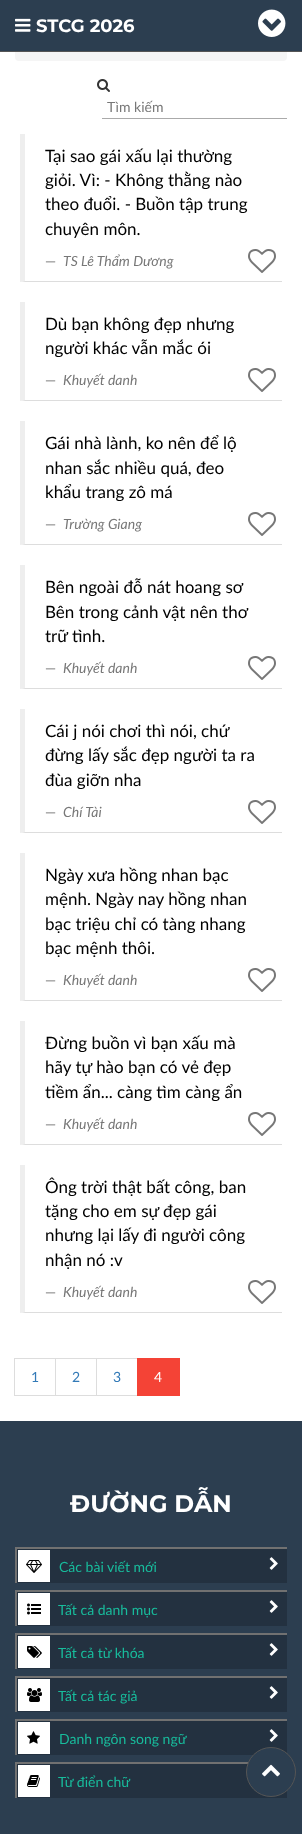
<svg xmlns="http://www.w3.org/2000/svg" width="302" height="1834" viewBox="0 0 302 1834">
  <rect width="100%" height="100%" fill="rgb(255,255,255)"/>
  <rect x="15" y="5" width="272" height="56" rx="4" fill="rgb(245,245,245)"/>
  <rect x="0" y="0" width="302" height="51" fill="rgb(44,62,80)"/>
  <rect x="0" y="51" width="302" height="1" fill="rgb(85,85,85)"/>
  <image x="15" y="18" width="16" height="14" href="pic1.png"/>
  <text x="36" y="32" font-family="Montserrat" font-size="18" font-weight="bold" fill="rgb(255,255,255)">STCG 2026</text>
  <image x="258" y="9" width="28" height="28" href="pic2.png"/>
  <image x="97" y="79" width="13" height="13" href="pic3.png"/>
  <rect x="102" y="118" width="185" height="1" fill="rgb(170,170,170)"/>
  <text x="107" y="112" font-family="Lato" font-size="14" fill="rgb(119,119,119)">Tìm kiếm</text>
  <path d="M282 282H20L25 281H282Z" fill="rgb(221,221,221)"/>
  <path d="M20 282V134H25V281Z" fill="rgb(238,238,238)"/>
  <g font-family="Lato" font-size="17" fill="rgb(0,0,0)">
    <text>
      <tspan x="45" y="162">Tại sao gái xấu lại thường</tspan>
      <tspan x="45" y="186">giỏi. Vì: - Không thằng nào</tspan>
      <tspan x="45" y="210">theo đuổi. - Buồn tập trung</tspan>
      <tspan x="45" y="235">chuyên môn.</tspan>
    </text>
  </g>
  <text x="45" y="266" font-family="Lato" font-size="14" fill="rgb(119,119,119)">—</text>
  <text x="63" y="266" font-family="Lato" font-size="14" font-style="italic" fill="rgb(119,119,119)">TS Lê Thẩm Dương</text>
  <image x="248" y="249" width="28" height="24" href="pic4.png"/>
  <path d="M282 401H20L25 400H282Z" fill="rgb(221,221,221)"/>
  <path d="M20 401V302H25V400Z" fill="rgb(238,238,238)"/>
  <g font-family="Lato" font-size="17" fill="rgb(0,0,0)">
    <text>
      <tspan x="45" y="330">Dù bạn không đẹp nhưng</tspan>
      <tspan x="45" y="354">người khác vẫn mắc ói</tspan>
    </text>
  </g>
  <text x="45" y="385" font-family="Lato" font-size="14" fill="rgb(119,119,119)">—</text>
  <text x="63" y="385" font-family="Lato" font-size="14" font-style="italic" fill="rgb(119,119,119)">Khuyết danh</text>
  <image x="248" y="368" width="28" height="24" href="pic4.png"/>
  <path d="M282 545H20L25 544H282Z" fill="rgb(221,221,221)"/>
  <path d="M20 545V421H25V544Z" fill="rgb(238,238,238)"/>
  <g font-family="Lato" font-size="17" fill="rgb(0,0,0)">
    <text>
      <tspan x="45" y="449">Gái nhà lành, ko nên để lộ</tspan>
      <tspan x="45" y="474">nhan sắc nhiều quá, đeo</tspan>
      <tspan x="45" y="498">khẩu trang zô má</tspan>
    </text>
  </g>
  <text x="45" y="529" font-family="Lato" font-size="14" fill="rgb(119,119,119)">—</text>
  <text x="63" y="529" font-family="Lato" font-size="14" font-style="italic" fill="rgb(119,119,119)">Trường Giang</text>
  <image x="248" y="512" width="28" height="24" href="pic4.png"/>
  <path d="M282 689H20L25 688H282Z" fill="rgb(221,221,221)"/>
  <path d="M20 689V565H25V688Z" fill="rgb(238,238,238)"/>
  <g font-family="Lato" font-size="17" fill="rgb(0,0,0)">
    <text>
      <tspan x="45" y="593">Bên ngoài đỗ nát hoang sơ</tspan>
      <tspan x="45" y="618">Bên trong cảnh vật nên thơ</tspan>
      <tspan x="45" y="642">trữ tình.</tspan>
    </text>
  </g>
  <text x="45" y="673" font-family="Lato" font-size="14" fill="rgb(119,119,119)">—</text>
  <text x="63" y="673" font-family="Lato" font-size="14" font-style="italic" fill="rgb(119,119,119)">Khuyết danh</text>
  <image x="248" y="656" width="28" height="24" href="pic4.png"/>
  <path d="M282 833H20L25 832H282Z" fill="rgb(221,221,221)"/>
  <path d="M20 833V709H25V832Z" fill="rgb(238,238,238)"/>
  <g font-family="Lato" font-size="17" fill="rgb(0,0,0)">
    <text>
      <tspan x="45" y="737">Cái j nói chơi thì nói, chứ</tspan>
      <tspan x="45" y="761">đừng lấy sắc đẹp người ta ra</tspan>
      <tspan x="45" y="786">đùa giỡn nha</tspan>
    </text>
  </g>
  <text x="45" y="817" font-family="Lato" font-size="14" fill="rgb(119,119,119)">—</text>
  <text x="63" y="817" font-family="Lato" font-size="14" font-style="italic" fill="rgb(119,119,119)">Chí Tài</text>
  <image x="248" y="800" width="28" height="24" href="pic4.png"/>
  <path d="M282 1001H20L25 1000H282Z" fill="rgb(221,221,221)"/>
  <path d="M20 1001V853H25V1000Z" fill="rgb(238,238,238)"/>
  <g font-family="Lato" font-size="17" fill="rgb(0,0,0)">
    <text>
      <tspan x="45" y="881">Ngày xưa hồng nhan bạc</tspan>
      <tspan x="45" y="905">mệnh. Ngày nay hồng nhan</tspan>
      <tspan x="45" y="930">bạc triệu chỉ có tàng nhang</tspan>
      <tspan x="45" y="954">bạc mệnh thôi.</tspan>
    </text>
  </g>
  <text x="45" y="985" font-family="Lato" font-size="14" fill="rgb(119,119,119)">—</text>
  <text x="63" y="985" font-family="Lato" font-size="14" font-style="italic" fill="rgb(119,119,119)">Khuyết danh</text>
  <image x="248" y="968" width="28" height="24" href="pic4.png"/>
  <path d="M282 1145H20L25 1144H282Z" fill="rgb(221,221,221)"/>
  <path d="M20 1145V1021H25V1144Z" fill="rgb(238,238,238)"/>
  <g font-family="Lato" font-size="17" fill="rgb(0,0,0)">
    <text>
      <tspan x="45" y="1049">Đừng buồn vì bạn xấu mà</tspan>
      <tspan x="45" y="1073">hãy tự hào bạn có vẻ đẹp</tspan>
      <tspan x="45" y="1098">tiềm ẩn... càng tìm càng ẩn</tspan>
    </text>
  </g>
  <text x="45" y="1129" font-family="Lato" font-size="14" fill="rgb(119,119,119)">—</text>
  <text x="63" y="1129" font-family="Lato" font-size="14" font-style="italic" fill="rgb(119,119,119)">Khuyết danh</text>
  <image x="248" y="1112" width="28" height="24" href="pic4.png"/>
  <path d="M282 1313H20L25 1312H282Z" fill="rgb(221,221,221)"/>
  <path d="M20 1313V1165H25V1312Z" fill="rgb(238,238,238)"/>
  <g font-family="Lato" font-size="17" fill="rgb(0,0,0)">
    <text>
      <tspan x="45" y="1193">Ông trời thật bất công, ban</tspan>
      <tspan x="45" y="1217">tặng cho em sự đẹp gái</tspan>
      <tspan x="45" y="1241">nhưng lại lấy đi người công</tspan>
      <tspan x="45" y="1266">nhận nó :v</tspan>
    </text>
  </g>
  <text x="45" y="1297" font-family="Lato" font-size="14" fill="rgb(119,119,119)">—</text>
  <text x="63" y="1297" font-family="Lato" font-size="14" font-style="italic" fill="rgb(119,119,119)">Khuyết danh</text>
  <image x="248" y="1280" width="28" height="24" href="pic4.png"/>
  <rect x="14.5" y="1358.5" width="41" height="37" fill="none" stroke="rgb(221,221,221)"/>
  <text x="31" y="1382" font-family="Lato" font-size="14" fill="rgb(51,122,183)">1</text>
  <rect x="55.5" y="1358.5" width="41" height="37" fill="none" stroke="rgb(221,221,221)"/>
  <text x="72" y="1382" font-family="Lato" font-size="14" fill="rgb(51,122,183)">2</text>
  <rect x="96.5" y="1358.5" width="41" height="37" fill="none" stroke="rgb(221,221,221)"/>
  <text x="113" y="1382" font-family="Lato" font-size="14" fill="rgb(51,122,183)">3</text>
  <rect x="137" y="1358" width="43" height="38" fill="rgb(244,67,54)"/>
  <text x="154" y="1382" font-family="Lato" font-size="14" fill="rgb(255,255,255)">4</text>
  <rect x="0" y="1421" width="302" height="413" fill="rgb(44,62,80)"/>
  <text x="70" y="1512" font-family="Montserrat" font-size="24" font-weight="bold" fill="rgb(255,255,255)">ĐƯỜNG DẪN</text>
  <rect x="17" y="1549" width="270" height="34" fill="rgb(35,49,64)"/>
  <rect x="15" y="1547" width="272" height="2" fill="rgb(113,113,113)"/>
  <rect x="15" y="1547" width="2" height="36" fill="rgb(113,113,113)"/>
  <rect x="18" y="1550" width="32" height="32" fill="rgb(255,255,255)"/>
  <image x="26" y="1560" width="16" height="13" href="pic5.png"/>
  <text x="59" y="1572" font-family="Lato" font-size="14" fill="rgb(24,188,156)">Các bài viết mới</text>
  <image x="269" y="1557" width="9" height="13" href="pic6.png"/>
  <rect x="17" y="1592" width="270" height="34" fill="rgb(35,49,64)"/>
  <rect x="15" y="1590" width="272" height="2" fill="rgb(113,113,113)"/>
  <rect x="15" y="1590" width="2" height="36" fill="rgb(113,113,113)"/>
  <rect x="18" y="1593" width="32" height="32" fill="rgb(255,255,255)"/>
  <image x="27" y="1603" width="14" height="12" href="pic7.png"/>
  <text x="58" y="1615" font-family="Lato" font-size="14" fill="rgb(24,188,156)">Tất cả danh mục</text>
  <image x="269" y="1600" width="9" height="13" href="pic6.png"/>
  <rect x="17" y="1635" width="270" height="34" fill="rgb(35,49,64)"/>
  <rect x="15" y="1633" width="272" height="2" fill="rgb(113,113,113)"/>
  <rect x="15" y="1633" width="2" height="36" fill="rgb(113,113,113)"/>
  <rect x="18" y="1636" width="32" height="32" fill="rgb(255,255,255)"/>
  <image x="27" y="1646" width="15" height="12" href="pic8.png"/>
  <text x="58" y="1658" font-family="Lato" font-size="14" fill="rgb(24,188,156)">Tất cả từ khóa</text>
  <image x="269" y="1643" width="9" height="13" href="pic6.png"/>
  <rect x="17" y="1678" width="270" height="34" fill="rgb(35,49,64)"/>
  <rect x="15" y="1676" width="272" height="2" fill="rgb(113,113,113)"/>
  <rect x="15" y="1676" width="2" height="36" fill="rgb(113,113,113)"/>
  <rect x="18" y="1679" width="32" height="32" fill="rgb(255,255,255)"/>
  <image x="27" y="1688" width="15" height="14" href="pic9.png"/>
  <text x="58" y="1701" font-family="Lato" font-size="14" fill="rgb(24,188,156)">Tất cả tác giả</text>
  <image x="269" y="1686" width="9" height="13" href="pic6.png"/>
  <rect x="17" y="1721" width="270" height="34" fill="rgb(35,49,64)"/>
  <rect x="15" y="1719" width="272" height="2" fill="rgb(113,113,113)"/>
  <rect x="15" y="1719" width="2" height="36" fill="rgb(113,113,113)"/>
  <rect x="18" y="1722" width="32" height="32" fill="rgb(255,255,255)"/>
  <image x="27" y="1731" width="13" height="13" href="pic10.png"/>
  <text x="59" y="1744" font-family="Lato" font-size="14" fill="rgb(24,188,156)">Danh ngôn song ngữ</text>
  <image x="269" y="1729" width="9" height="13" href="pic6.png"/>
  <rect x="17" y="1764" width="270" height="34" fill="rgb(35,49,64)"/>
  <rect x="15" y="1762" width="234" height="2" fill="rgb(113,113,113)"/>
  <rect x="15" y="1762" width="2" height="36" fill="rgb(113,113,113)"/>
  <rect x="18" y="1765" width="32" height="32" fill="rgb(255,255,255)"/>
  <image x="27" y="1775" width="13" height="12" href="pic11.png"/>
  <text x="58" y="1787" font-family="Lato" font-size="14" fill="rgb(24,188,156)">Từ điển chữ</text>
  <circle cx="271" cy="1772" r="24.5" fill="rgb(44,62,80)" stroke="rgb(85,85,85)"/>
  <image x="262" y="1764" width="18" height="13" href="pic12.png"/>
</svg>
